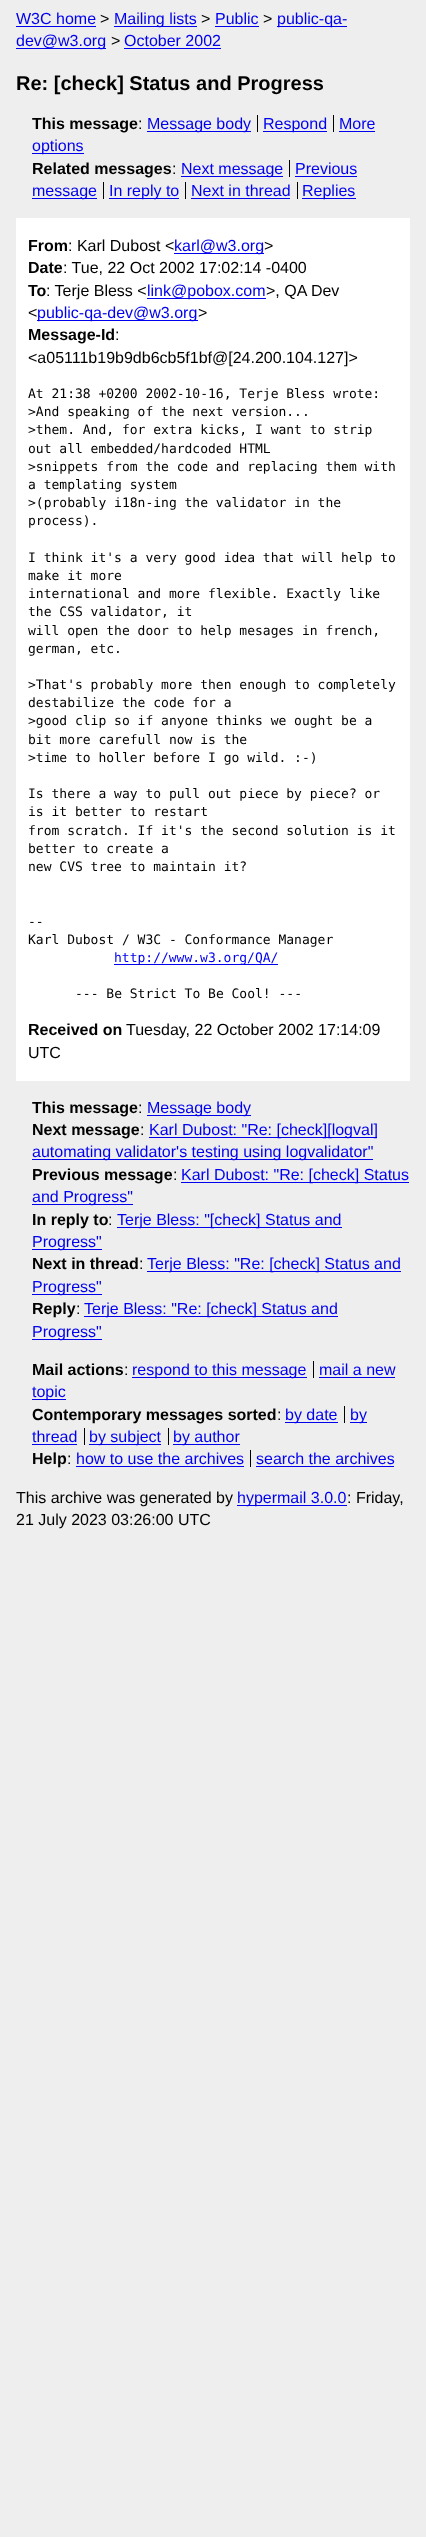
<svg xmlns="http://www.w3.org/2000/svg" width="426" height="2537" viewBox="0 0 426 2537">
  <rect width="100%" height="100%" fill="rgb(238,238,238)"/>
  <text x="16" y="24" font-family="Liberation Sans" font-size="16" fill="rgb(0,0,238)">W3C home</text>
  <rect x="16" y="26" width="80" height="1" fill="rgb(0,0,238)"/>
  <text x="100" y="24" font-family="Liberation Sans" font-size="16" fill="rgb(0,0,0)">&gt;</text>
  <rect x="114" y="26" width="83" height="1" fill="rgb(0,0,238)"/>
  <text x="114" y="24" font-family="Liberation Sans" font-size="16" fill="rgb(0,0,238)">Mailing lists</text>
  <text x="201" y="24" font-family="Liberation Sans" font-size="16" fill="rgb(0,0,0)">&gt;</text>
  <text x="215" y="24" font-family="Liberation Sans" font-size="16" fill="rgb(0,0,238)">Public</text>
  <rect x="215" y="26" width="44" height="1" fill="rgb(0,0,238)"/>
  <text x="263" y="24" font-family="Liberation Sans" font-size="16" fill="rgb(0,0,0)">&gt;</text>
  <rect x="277" y="26" width="70" height="1" fill="rgb(0,0,238)"/>
  <text x="277" y="24" font-family="Liberation Sans" font-size="16" fill="rgb(0,0,238)">public-qa-</text>
  <rect x="16" y="48" width="90" height="1" fill="rgb(0,0,238)"/>
  <text x="16" y="46" font-family="Liberation Sans" font-size="16" fill="rgb(0,0,238)">dev@w3.org</text>
  <text x="111" y="46" font-family="Liberation Sans" font-size="16" fill="rgb(0,0,0)">&gt;</text>
  <text x="124" y="46" font-family="Liberation Sans" font-size="16" fill="rgb(0,0,238)">October 2002</text>
  <rect x="124" y="48" width="97" height="1" fill="rgb(0,0,238)"/>
  <text x="16" y="90" font-family="Liberation Sans" font-size="20" font-weight="bold" fill="rgb(0,0,0)">Re: [check] Status and Progress</text>
  <text x="32" y="129" font-family="Liberation Sans" font-size="16" font-weight="bold" fill="rgb(0,0,0)">This message</text>
  <text x="138" y="129" font-family="Liberation Sans" font-size="16" fill="rgb(0,0,0)">:</text>
  <rect x="147" y="131" width="104" height="1" fill="rgb(0,0,238)"/>
  <text x="147" y="129" font-family="Liberation Sans" font-size="16" fill="rgb(0,0,238)">Message body</text>
  <rect x="263" y="131" width="64" height="1" fill="rgb(0,0,238)"/>
  <text x="263" y="129" font-family="Liberation Sans" font-size="16" fill="rgb(0,0,238)">Respond</text>
  <rect x="257" y="115" width="1" height="17" fill="rgb(0,0,0)"/>
  <text x="339" y="129" font-family="Liberation Sans" font-size="16" fill="rgb(0,0,238)">More</text>
  <rect x="333" y="115" width="1" height="17" fill="rgb(0,0,0)"/>
  <rect x="339" y="131" width="36" height="1" fill="rgb(0,0,238)"/>
  <rect x="32" y="153" width="52" height="1" fill="rgb(0,0,238)"/>
  <text x="32" y="151" font-family="Liberation Sans" font-size="16" fill="rgb(0,0,238)">options</text>
  <text x="32" y="174" font-family="Liberation Sans" font-size="16" font-weight="bold" fill="rgb(0,0,0)">Related messages</text>
  <text x="172" y="174" font-family="Liberation Sans" font-size="16" fill="rgb(0,0,0)">:</text>
  <rect x="181" y="176" width="102" height="1" fill="rgb(0,0,238)"/>
  <g font-family="Liberation Sans" font-size="16" fill="rgb(0,0,238)">
    <text x="181" y="174">Next message</text>
    <text x="295" y="174">Previous</text>
  </g>
  <rect x="289" y="160" width="1" height="17" fill="rgb(0,0,0)"/>
  <rect x="295" y="176" width="62" height="1" fill="rgb(0,0,238)"/>
  <rect x="32" y="198" width="65" height="1" fill="rgb(0,0,238)"/>
  <text x="32" y="196" font-family="Liberation Sans" font-size="16" fill="rgb(0,0,238)">message</text>
  <rect x="109" y="198" width="70" height="1" fill="rgb(0,0,238)"/>
  <text x="109" y="196" font-family="Liberation Sans" font-size="16" fill="rgb(0,0,238)">In reply to</text>
  <rect x="103" y="182" width="1" height="17" fill="rgb(0,0,0)"/>
  <text x="191" y="196" font-family="Liberation Sans" font-size="16" fill="rgb(0,0,238)">Next in thread</text>
  <rect x="185" y="182" width="1" height="17" fill="rgb(0,0,0)"/>
  <rect x="297" y="182" width="1" height="17" fill="rgb(0,0,0)"/>
  <rect x="191" y="198" width="99" height="1" fill="rgb(0,0,238)"/>
  <rect x="302" y="198" width="54" height="1" fill="rgb(0,0,238)"/>
  <text x="302" y="196" font-family="Liberation Sans" font-size="16" fill="rgb(0,0,238)">Replies</text>
  <rect x="16" y="218" width="394" height="863" fill="rgb(255,255,255)"/>
  <text x="28" y="251" font-family="Liberation Sans" font-size="16" font-weight="bold" fill="rgb(0,0,0)">From</text>
  <text x="68" y="251" font-family="Liberation Sans" font-size="16" fill="rgb(0,0,0)">: Karl Dubost &lt;</text>
  <rect x="174" y="253" width="90" height="1" fill="rgb(0,0,238)"/>
  <text x="174" y="251" font-family="Liberation Sans" font-size="16" fill="rgb(0,0,238)">karl@w3.org</text>
  <text x="264" y="251" font-family="Liberation Sans" font-size="16" fill="rgb(0,0,0)">&gt;</text>
  <text x="28" y="273" font-family="Liberation Sans" font-size="16" font-weight="bold" fill="rgb(0,0,0)">Date</text>
  <text x="63" y="273" font-family="Liberation Sans" font-size="16" fill="rgb(0,0,0)">: Tue, 22 Oct 2002 17:02:14 -0400</text>
  <text x="28" y="296" font-family="Liberation Sans" font-size="16" font-weight="bold" fill="rgb(0,0,0)">To</text>
  <text x="46" y="296" font-family="Liberation Sans" font-size="16" fill="rgb(0,0,0)">: Terje Bless &lt;</text>
  <rect x="147" y="298" width="119" height="1" fill="rgb(0,0,238)"/>
  <text x="147" y="296" font-family="Liberation Sans" font-size="16" fill="rgb(0,0,238)">link@pobox.com</text>
  <g font-family="Liberation Sans" font-size="16" fill="rgb(0,0,0)">
    <text x="266" y="296">&gt;, QA Dev</text>
    <text x="28" y="318">&lt;</text>
  </g>
  <rect x="37" y="320" width="161" height="1" fill="rgb(0,0,238)"/>
  <text x="37" y="318" font-family="Liberation Sans" font-size="16" fill="rgb(0,0,238)">public-qa-dev@w3.org</text>
  <text x="198" y="318" font-family="Liberation Sans" font-size="16" fill="rgb(0,0,0)">&gt;</text>
  <text x="28" y="340" font-family="Liberation Sans" font-size="16" font-weight="bold" fill="rgb(0,0,0)">Message-Id</text>
  <g font-family="Liberation Sans" font-size="16" fill="rgb(0,0,0)">
    <text x="115" y="340">:</text>
    <text x="28" y="363">&lt;a05111b19b9db6cb5f1bf@[24.200.104.127]&gt;</text>
  </g>
  <g font-family="DejaVu Sans Mono" font-size="13" fill="rgb(0,0,0)">
    <text>
      <tspan x="28" y="398">At 21:38 +0200 2002-10-16, Terje Bless wrote:</tspan>
      <tspan x="28" y="416">&gt;And speaking of the next version...</tspan>
      <tspan x="28" y="434">&gt;them. And, for extra kicks, I want to strip</tspan>
      <tspan x="28" y="453">out all embedded/hardcoded HTML</tspan>
      <tspan x="28" y="471">&gt;snippets from the code and replacing them with</tspan>
      <tspan x="28" y="489">a templating system</tspan>
      <tspan x="28" y="507">&gt;(probably i18n-ing the validator in the</tspan>
      <tspan x="28" y="525">process).</tspan>
    </text>
    <text>
      <tspan x="28" y="562">I think it's a very good idea that will help to</tspan>
      <tspan x="28" y="580">make it more</tspan>
      <tspan x="28" y="598">international and more flexible. Exactly like</tspan>
      <tspan x="28" y="616">the CSS validator, it</tspan>
      <tspan x="28" y="635">will open the door to help mesages in french,</tspan>
      <tspan x="28" y="653">german, etc.</tspan>
    </text>
    <text>
      <tspan x="28" y="689">&gt;That's probably more then enough to completely</tspan>
      <tspan x="28" y="707">destabilize the code for a</tspan>
      <tspan x="28" y="725">&gt;good clip so if anyone thinks we ought be a</tspan>
      <tspan x="28" y="744">bit more carefull now is the</tspan>
      <tspan x="28" y="762">&gt;time to holler before I go wild. :-)</tspan>
    </text>
    <text>
      <tspan x="28" y="798">Is there a way to pull out piece by piece? or</tspan>
      <tspan x="28" y="816">is it better to restart</tspan>
      <tspan x="28" y="835">from scratch. If it's the second solution is it</tspan>
      <tspan x="28" y="853">better to create a</tspan>
      <tspan x="28" y="871">new CVS tree to maintain it?</tspan>
    </text>
    <text>
      <tspan x="28" y="926">--</tspan>
      <tspan x="28" y="944">Karl Dubost / W3C - Conformance Manager</tspan>
    </text>
  </g>
  <rect x="114" y="964" width="164" height="1" fill="rgb(0,0,238)"/>
  <text x="114" y="962" font-family="DejaVu Sans Mono" font-size="13" fill="rgb(0,0,238)">http://www.w3.org/QA/</text>
  <text x="75" y="998" font-family="DejaVu Sans Mono" font-size="13" fill="rgb(0,0,0)">--- Be Strict To Be Cool! ---</text>
  <text x="28" y="1035" font-family="Liberation Sans" font-size="16" font-weight="bold" fill="rgb(0,0,0)">Received on</text>
  <g font-family="Liberation Sans" font-size="16" fill="rgb(0,0,0)">
    <text x="126" y="1035">Tuesday, 22 October 2002 17:14:09</text>
    <text x="28" y="1058">UTC</text>
  </g>
  <text x="32" y="1113" font-family="Liberation Sans" font-size="16" font-weight="bold" fill="rgb(0,0,0)">This message</text>
  <text x="138" y="1113" font-family="Liberation Sans" font-size="16" fill="rgb(0,0,0)">:</text>
  <rect x="147" y="1115" width="104" height="1" fill="rgb(0,0,238)"/>
  <text x="147" y="1113" font-family="Liberation Sans" font-size="16" fill="rgb(0,0,238)">Message body</text>
  <text x="32" y="1135" font-family="Liberation Sans" font-size="16" font-weight="bold" fill="rgb(0,0,0)">Next message</text>
  <text x="140" y="1135" font-family="Liberation Sans" font-size="16" fill="rgb(0,0,0)">:</text>
  <rect x="149" y="1137" width="228" height="1" fill="rgb(0,0,238)"/>
  <text x="149" y="1135" font-family="Liberation Sans" font-size="16" fill="rgb(0,0,238)">Karl Dubost: "Re: [check][logval]</text>
  <rect x="32" y="1159" width="341" height="1" fill="rgb(0,0,238)"/>
  <text x="32" y="1157" font-family="Liberation Sans" font-size="16" fill="rgb(0,0,238)">automating validator's testing using logvalidator"</text>
  <text x="32" y="1180" font-family="Liberation Sans" font-size="16" font-weight="bold" fill="rgb(0,0,0)">Previous message</text>
  <text x="173" y="1180" font-family="Liberation Sans" font-size="16" fill="rgb(0,0,0)">:</text>
  <rect x="181" y="1182" width="228" height="1" fill="rgb(0,0,238)"/>
  <text x="181" y="1180" font-family="Liberation Sans" font-size="16" fill="rgb(0,0,238)">Karl Dubost: "Re: [check] Status</text>
  <rect x="32" y="1204" width="101" height="1" fill="rgb(0,0,238)"/>
  <text x="32" y="1202" font-family="Liberation Sans" font-size="16" fill="rgb(0,0,238)">and Progress"</text>
  <text x="32" y="1225" font-family="Liberation Sans" font-size="16" font-weight="bold" fill="rgb(0,0,0)">In reply to</text>
  <text x="108" y="1225" font-family="Liberation Sans" font-size="16" fill="rgb(0,0,0)">:</text>
  <rect x="117" y="1227" width="225" height="1" fill="rgb(0,0,238)"/>
  <text x="117" y="1225" font-family="Liberation Sans" font-size="16" fill="rgb(0,0,238)">Terje Bless: "[check] Status and</text>
  <rect x="32" y="1249" width="70" height="1" fill="rgb(0,0,238)"/>
  <text x="32" y="1247" font-family="Liberation Sans" font-size="16" fill="rgb(0,0,238)">Progress"</text>
  <text x="32" y="1269" font-family="Liberation Sans" font-size="16" font-weight="bold" fill="rgb(0,0,0)">Next in thread</text>
  <text x="139" y="1269" font-family="Liberation Sans" font-size="16" fill="rgb(0,0,0)">:</text>
  <rect x="147" y="1271" width="254" height="1" fill="rgb(0,0,238)"/>
  <text x="147" y="1269" font-family="Liberation Sans" font-size="16" fill="rgb(0,0,238)">Terje Bless: "Re: [check] Status and</text>
  <rect x="32" y="1294" width="70" height="1" fill="rgb(0,0,238)"/>
  <text x="32" y="1292" font-family="Liberation Sans" font-size="16" fill="rgb(0,0,238)">Progress"</text>
  <text x="32" y="1314" font-family="Liberation Sans" font-size="16" font-weight="bold" fill="rgb(0,0,0)">Reply</text>
  <text x="76" y="1314" font-family="Liberation Sans" font-size="16" fill="rgb(0,0,0)">:</text>
  <rect x="84" y="1316" width="254" height="1" fill="rgb(0,0,238)"/>
  <text x="84" y="1314" font-family="Liberation Sans" font-size="16" fill="rgb(0,0,238)">Terje Bless: "Re: [check] Status and</text>
  <rect x="32" y="1339" width="70" height="1" fill="rgb(0,0,238)"/>
  <text x="32" y="1337" font-family="Liberation Sans" font-size="16" fill="rgb(0,0,238)">Progress"</text>
  <text x="32" y="1375" font-family="Liberation Sans" font-size="16" font-weight="bold" fill="rgb(0,0,0)">Mail actions</text>
  <text x="124" y="1375" font-family="Liberation Sans" font-size="16" fill="rgb(0,0,0)">:</text>
  <rect x="132" y="1377" width="175" height="1" fill="rgb(0,0,238)"/>
  <g font-family="Liberation Sans" font-size="16" fill="rgb(0,0,238)">
    <text x="132" y="1375">respond to this message</text>
    <text x="319" y="1375">mail a new</text>
  </g>
  <rect x="313" y="1361" width="1" height="17" fill="rgb(0,0,0)"/>
  <rect x="319" y="1377" width="76" height="1" fill="rgb(0,0,238)"/>
  <rect x="32" y="1399" width="34" height="1" fill="rgb(0,0,238)"/>
  <text x="32" y="1397" font-family="Liberation Sans" font-size="16" fill="rgb(0,0,238)">topic</text>
  <text x="32" y="1420" font-family="Liberation Sans" font-size="16" font-weight="bold" fill="rgb(0,0,0)">Contemporary messages sorted</text>
  <text x="277" y="1420" font-family="Liberation Sans" font-size="16" fill="rgb(0,0,0)">:</text>
  <rect x="285" y="1422" width="53" height="1" fill="rgb(0,0,238)"/>
  <text x="285" y="1420" font-family="Liberation Sans" font-size="16" fill="rgb(0,0,238)">by date</text>
  <rect x="350" y="1422" width="17" height="1" fill="rgb(0,0,238)"/>
  <text x="350" y="1420" font-family="Liberation Sans" font-size="16" fill="rgb(0,0,238)">by</text>
  <rect x="344" y="1406" width="1" height="17" fill="rgb(0,0,0)"/>
  <text x="32" y="1442" font-family="Liberation Sans" font-size="16" fill="rgb(0,0,238)">thread</text>
  <rect x="84" y="1428" width="1" height="17" fill="rgb(0,0,0)"/>
  <rect x="32" y="1444" width="45" height="1" fill="rgb(0,0,238)"/>
  <rect x="89" y="1444" width="72" height="1" fill="rgb(0,0,238)"/>
  <text x="89" y="1442" font-family="Liberation Sans" font-size="16" fill="rgb(0,0,238)">by subject</text>
  <rect x="173" y="1444" width="67" height="1" fill="rgb(0,0,238)"/>
  <text x="173" y="1442" font-family="Liberation Sans" font-size="16" fill="rgb(0,0,238)">by author</text>
  <rect x="168" y="1428" width="1" height="17" fill="rgb(0,0,0)"/>
  <text x="32" y="1464" font-family="Liberation Sans" font-size="16" font-weight="bold" fill="rgb(0,0,0)">Help</text>
  <text x="67" y="1464" font-family="Liberation Sans" font-size="16" fill="rgb(0,0,0)">:</text>
  <text x="76" y="1464" font-family="Liberation Sans" font-size="16" fill="rgb(0,0,238)">how to use the archives</text>
  <rect x="76" y="1466" width="168" height="1" fill="rgb(0,0,238)"/>
  <text x="256" y="1464" font-family="Liberation Sans" font-size="16" fill="rgb(0,0,238)">search the archives</text>
  <rect x="250" y="1450" width="1" height="17" fill="rgb(0,0,0)"/>
  <rect x="256" y="1466" width="138" height="1" fill="rgb(0,0,238)"/>
  <text x="16" y="1503" font-family="Liberation Sans" font-size="16" fill="rgb(0,0,0)">This archive was generated by</text>
  <rect x="237" y="1505" width="110" height="1" fill="rgb(0,0,238)"/>
  <text x="237" y="1503" font-family="Liberation Sans" font-size="16" fill="rgb(0,0,238)">hypermail 3.0.0</text>
  <g font-family="Liberation Sans" font-size="16" fill="rgb(0,0,0)">
    <text x="347" y="1503">: Friday,</text>
    <text x="16" y="1525">21 July 2023 03:26:00 UTC</text>
  </g>
</svg>
